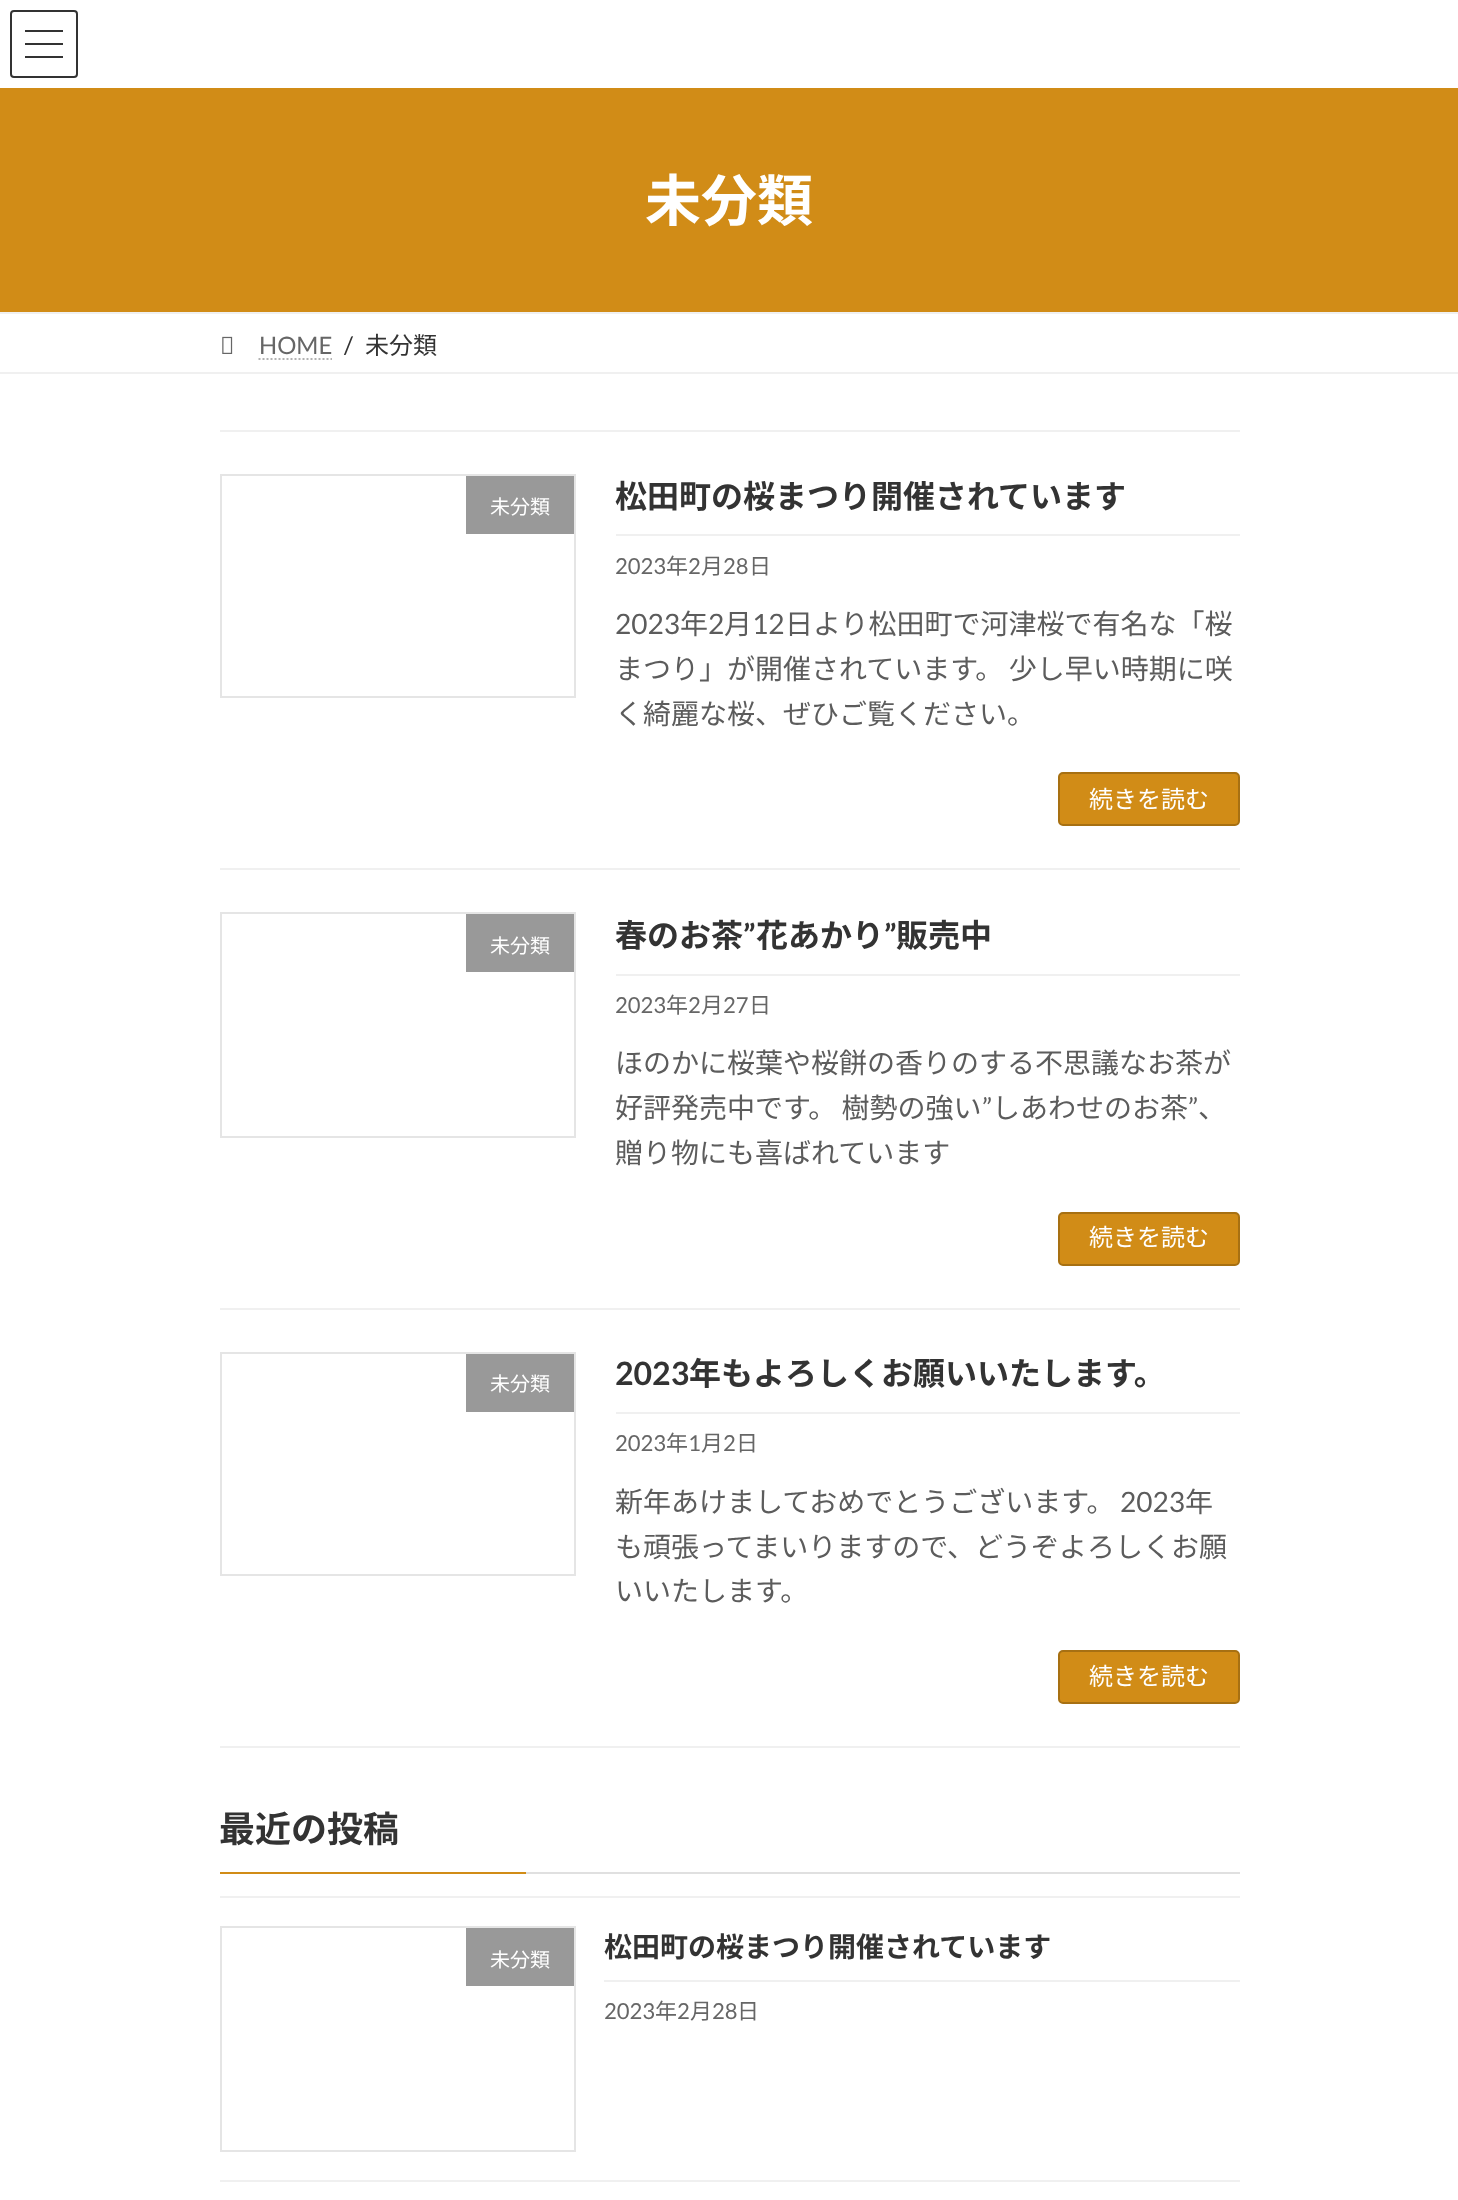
<svg xmlns="http://www.w3.org/2000/svg" width="1458" height="2200" viewBox="0 0 1458 2200">
  <rect width="100%" height="100%" fill="rgb(255,255,255)"/>
  <rect x="25" y="30" width="38" height="2" fill="rgb(51,51,51)"/>
  <rect x="25" y="43" width="38" height="2" fill="rgb(51,51,51)"/>
  <rect x="25" y="56" width="38" height="2" fill="rgb(51,51,51)"/>
  <rect x="11" y="11" width="66" height="66" rx="3" fill="none" stroke="rgb(51,51,51)" stroke-width="2"/>
  <rect x="0" y="88" width="1458" height="224" fill="rgb(209,140,23)"/>
  <text x="645" y="221" font-family="Noto Sans JP" font-size="56" font-weight="bold" fill="rgb(255,255,255)">未分類</text>
  <rect x="0" y="312" width="1458" height="2" fill="rgb(240,240,240)"/>
  <rect x="0" y="372" width="1458" height="2" fill="rgb(240,240,240)"/>
  <image x="222" y="336" width="11" height="18" href="pic1.png"/>
  <text x="259" y="354" font-family="Lato" font-size="24" fill="rgb(102,102,102)">HOME</text>
  <path d="M258.5 359H332" fill="none" stroke="rgb(179,179,179)" stroke-width="2" stroke-dasharray="2 2"/>
  <text x="344" y="354" font-family="Lato" font-size="24" fill="rgb(51,51,51)">/</text>
  <text x="365" y="354" font-family="Noto Sans JP" font-size="24" fill="rgb(51,51,51)">未分類</text>
  <rect x="220" y="430" width="1020" height="2" fill="rgb(240,240,240)"/>
  <rect x="220" y="868" width="1020" height="2" fill="rgb(240,240,240)"/>
  <rect x="221" y="475" width="354" height="222" fill="none" stroke="rgb(229,229,229)" stroke-width="2"/>
  <rect x="466" y="476" width="108" height="58" fill="rgb(153,153,153)"/>
  <text x="490" y="514" font-family="Noto Sans JP" font-size="20" fill="rgb(255,255,255)">未分類</text>
  <rect x="616" y="534" width="624" height="2" fill="rgb(240,240,240)"/>
  <text x="615" y="508" font-family="Noto Sans JP" font-size="32" font-weight="bold" fill="rgb(51,51,51)">松田町の桜まつり開催されています</text>
  <text x="615" y="574" font-family="Lato" font-size="22" fill="rgb(102,102,102)">2023</text>
  <text x="666" y="574" font-family="Noto Sans JP" font-size="22" fill="rgb(102,102,102)">年</text>
  <text x="688" y="574" font-family="Lato" font-size="22" fill="rgb(102,102,102)">2</text>
  <text x="701" y="574" font-family="Noto Sans JP" font-size="22" fill="rgb(102,102,102)">月</text>
  <text x="723" y="574" font-family="Lato" font-size="22" fill="rgb(102,102,102)">28</text>
  <text x="749" y="574" font-family="Noto Sans JP" font-size="22" fill="rgb(102,102,102)">日</text>
  <text x="615" y="634" font-family="Lato" font-size="28" fill="rgb(92,92,92)">2023</text>
  <text x="680" y="634" font-family="Noto Sans JP" font-size="28" fill="rgb(92,92,92)">年</text>
  <text x="708" y="634" font-family="Lato" font-size="28" fill="rgb(92,92,92)">2</text>
  <text x="724" y="634" font-family="Noto Sans JP" font-size="28" fill="rgb(92,92,92)">月</text>
  <text x="752" y="634" font-family="Lato" font-size="28" fill="rgb(92,92,92)">12</text>
  <g font-family="Noto Sans JP" font-size="28" fill="rgb(92,92,92)">
    <text x="785" y="634">日より松田町で河津桜で有名な「桜</text>
    <text>
      <tspan x="615" y="679" word-spacing="-1">まつり」が開催されています。 少し早い時期に咲</tspan>
      <tspan x="615" y="724">く綺麗な桜、ぜひご覧ください。</tspan>
    </text>
  </g>
  <rect x="1059" y="773" width="180" height="52" rx="4" fill="rgb(209,140,23)" stroke="rgb(167,112,18)" stroke-width="2"/>
  <text x="1089" y="808" font-family="Noto Sans JP" font-size="24" fill="rgb(255,255,255)">続きを読む</text>
  <rect x="220" y="1308" width="1020" height="2" fill="rgb(240,240,240)"/>
  <rect x="221" y="913" width="354" height="224" fill="none" stroke="rgb(229,229,229)" stroke-width="2"/>
  <rect x="466" y="914" width="108" height="58" fill="rgb(153,153,153)"/>
  <text x="490" y="953" font-family="Noto Sans JP" font-size="20" fill="rgb(255,255,255)">未分類</text>
  <rect x="616" y="974" width="624" height="2" fill="rgb(240,240,240)"/>
  <text x="615" y="947" font-family="Noto Sans JP" font-size="32" font-weight="bold" fill="rgb(51,51,51)">春のお茶</text>
  <text x="743" y="947" font-family="Lato" font-size="32" font-weight="bold" fill="rgb(51,51,51)">”</text>
  <text x="756" y="947" font-family="Noto Sans JP" font-size="32" font-weight="bold" fill="rgb(51,51,51)">花あかり</text>
  <text x="884" y="947" font-family="Lato" font-size="32" font-weight="bold" fill="rgb(51,51,51)">”</text>
  <text x="896" y="947" font-family="Noto Sans JP" font-size="32" font-weight="bold" fill="rgb(51,51,51)">販売中</text>
  <text x="615" y="1013" font-family="Lato" font-size="22" fill="rgb(102,102,102)">2023</text>
  <text x="666" y="1013" font-family="Noto Sans JP" font-size="22" fill="rgb(102,102,102)">年</text>
  <text x="688" y="1013" font-family="Lato" font-size="22" fill="rgb(102,102,102)">2</text>
  <text x="701" y="1013" font-family="Noto Sans JP" font-size="22" fill="rgb(102,102,102)">月</text>
  <text x="723" y="1013" font-family="Lato" font-size="22" fill="rgb(102,102,102)">27</text>
  <text x="749" y="1013" font-family="Noto Sans JP" font-size="22" fill="rgb(102,102,102)">日</text>
  <g font-family="Noto Sans JP" font-size="28" fill="rgb(92,92,92)">
    <text>
      <tspan x="615" y="1073">ほのかに桜葉や桜餅の香りのする不思議なお茶が</tspan>
      <tspan x="615" y="1118" word-spacing="-1">好評発売中です。 樹勢の強い</tspan>
    </text>
  </g>
  <text x="982" y="1118" font-family="Lato" font-size="28" fill="rgb(92,92,92)">”</text>
  <text x="992" y="1118" font-family="Noto Sans JP" font-size="28" fill="rgb(92,92,92)">しあわせのお茶</text>
  <text x="1188" y="1118" font-family="Lato" font-size="28" fill="rgb(92,92,92)">”</text>
  <g font-family="Noto Sans JP" font-size="28" fill="rgb(92,92,92)">
    <text x="1198" y="1118">、</text>
    <text x="615" y="1163">贈り物にも喜ばれています</text>
  </g>
  <rect x="1059" y="1213" width="180" height="52" rx="4" fill="rgb(209,140,23)" stroke="rgb(167,112,18)" stroke-width="2"/>
  <text x="1089" y="1246" font-family="Noto Sans JP" font-size="24" fill="rgb(255,255,255)">続きを読む</text>
  <rect x="220" y="1746" width="1020" height="2" fill="rgb(240,240,240)"/>
  <rect x="221" y="1353" width="354" height="222" fill="none" stroke="rgb(229,229,229)" stroke-width="2"/>
  <rect x="466" y="1354" width="108" height="58" fill="rgb(153,153,153)"/>
  <text x="490" y="1391" font-family="Noto Sans JP" font-size="20" fill="rgb(255,255,255)">未分類</text>
  <rect x="616" y="1412" width="624" height="2" fill="rgb(240,240,240)"/>
  <text x="615" y="1385" font-family="Lato" font-size="32" font-weight="bold" fill="rgb(51,51,51)">2023</text>
  <text x="689" y="1385" font-family="Noto Sans JP" font-size="32" font-weight="bold" fill="rgb(51,51,51)">年もよろしくお願いいたします。</text>
  <text x="615" y="1451" font-family="Lato" font-size="22" fill="rgb(102,102,102)">2023</text>
  <text x="666" y="1451" font-family="Noto Sans JP" font-size="22" fill="rgb(102,102,102)">年</text>
  <text x="688" y="1451" font-family="Lato" font-size="22" fill="rgb(102,102,102)">1</text>
  <text x="701" y="1451" font-family="Noto Sans JP" font-size="22" fill="rgb(102,102,102)">月</text>
  <text x="723" y="1451" font-family="Lato" font-size="22" fill="rgb(102,102,102)">2</text>
  <text x="736" y="1451" font-family="Noto Sans JP" font-size="22" fill="rgb(102,102,102)">日</text>
  <text x="615" y="1512" font-family="Noto Sans JP" font-size="28" fill="rgb(92,92,92)">新年あけましておめでとうございます。</text>
  <text x="1120" y="1512" font-family="Lato" font-size="28" fill="rgb(92,92,92)">2023</text>
  <g font-family="Noto Sans JP" font-size="28" fill="rgb(92,92,92)">
    <text x="1185" y="1512">年</text>
    <text>
      <tspan x="615" y="1557">も頑張ってまいりますので、どうぞよろしくお願</tspan>
      <tspan x="615" y="1601">いいたします。</tspan>
    </text>
  </g>
  <rect x="1059" y="1651" width="180" height="52" rx="4" fill="rgb(209,140,23)" stroke="rgb(167,112,18)" stroke-width="2"/>
  <text x="1089" y="1685" font-family="Noto Sans JP" font-size="24" fill="rgb(255,255,255)">続きを読む</text>
  <rect x="526" y="1872" width="714" height="2" fill="rgb(224,224,224)"/>
  <text x="219" y="1842" font-family="Noto Sans JP" font-size="36" font-weight="bold" fill="rgb(51,51,51)">最近の投稿</text>
  <rect x="220" y="1872" width="306" height="2" fill="rgb(209,140,23)"/>
  <rect x="220" y="1896" width="1020" height="2" fill="rgb(240,240,240)"/>
  <rect x="220" y="2180" width="1020" height="2" fill="rgb(240,240,240)"/>
  <rect x="221" y="1927" width="354" height="224" fill="none" stroke="rgb(229,229,229)" stroke-width="2"/>
  <rect x="466" y="1928" width="108" height="58" fill="rgb(153,153,153)"/>
  <text x="490" y="1967" font-family="Noto Sans JP" font-size="20" fill="rgb(255,255,255)">未分類</text>
  <rect x="604" y="1980" width="636" height="2" fill="rgb(240,240,240)"/>
  <text x="604" y="1957" font-family="Noto Sans JP" font-size="28" font-weight="bold" fill="rgb(51,51,51)">松田町の桜まつり開催されています</text>
  <text x="604" y="2019" font-family="Lato" font-size="22" fill="rgb(102,102,102)">2023</text>
  <text x="655" y="2019" font-family="Noto Sans JP" font-size="22" fill="rgb(102,102,102)">年</text>
  <text x="677" y="2019" font-family="Lato" font-size="22" fill="rgb(102,102,102)">2</text>
  <text x="690" y="2019" font-family="Noto Sans JP" font-size="22" fill="rgb(102,102,102)">月</text>
  <text x="712" y="2019" font-family="Lato" font-size="22" fill="rgb(102,102,102)">28</text>
  <text x="737" y="2019" font-family="Noto Sans JP" font-size="22" fill="rgb(102,102,102)">日</text>
</svg>
